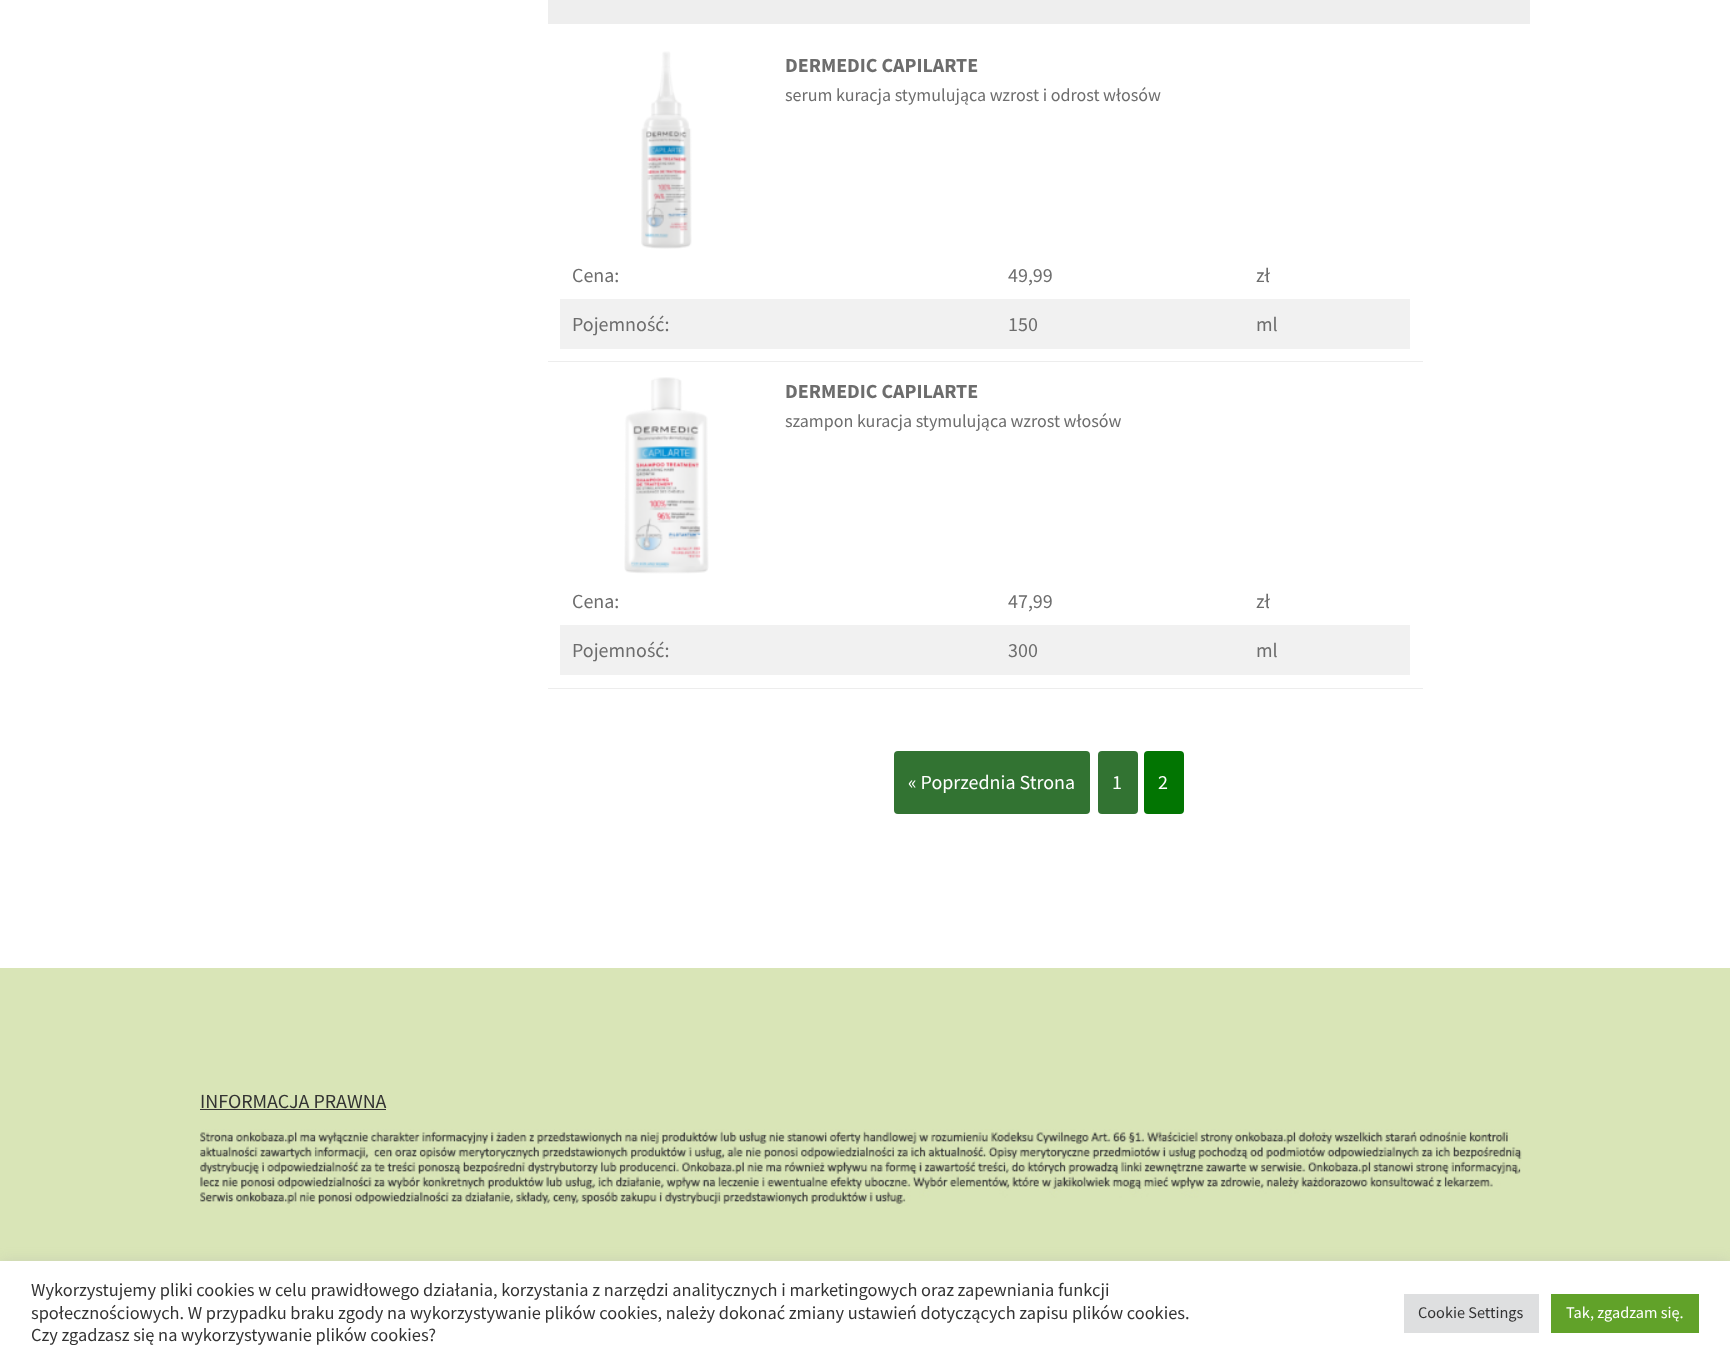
<svg xmlns="http://www.w3.org/2000/svg" width="1730" height="1363" viewBox="0 0 1730 1363">
  <rect width="100%" height="100%" fill="rgb(255,255,255)"/>
  <rect x="548" y="0" width="982" height="24" fill="rgb(238,238,238)"/>
  <rect x="548" y="361" width="875" height="1" fill="rgb(237,237,237)"/>
  <image x="641" y="51" width="51" height="198" href="pic1.png"/>
  <text x="785" y="72" font-family="Source Sans Pro" font-size="20" font-weight="bold" fill="rgb(109,109,109)">DERMEDIC CAPILARTE</text>
  <text x="785" y="101" font-family="Source Sans Pro" font-size="18" fill="rgb(109,109,109)">serum kuracja stymulująca wzrost i odrost włosów</text>
  <g font-family="Source Sans Pro" font-size="20" fill="rgb(109,109,109)">
    <text x="572" y="282">Cena:</text>
    <text x="1008" y="282">49,99</text>
    <text x="1256" y="282">zł</text>
  </g>
  <rect x="560" y="299" width="850" height="50" fill="rgb(241,241,241)"/>
  <g font-family="Source Sans Pro" font-size="20" fill="rgb(109,109,109)">
    <text x="572" y="331">Pojemność:</text>
    <text x="1008" y="331">150</text>
    <text x="1256" y="331">ml</text>
  </g>
  <rect x="548" y="688" width="875" height="1" fill="rgb(237,237,237)"/>
  <image x="624" y="377" width="85" height="197" href="pic2.png"/>
  <text x="785" y="398" font-family="Source Sans Pro" font-size="20" font-weight="bold" fill="rgb(109,109,109)">DERMEDIC CAPILARTE</text>
  <text x="785" y="427" font-family="Source Sans Pro" font-size="18" fill="rgb(109,109,109)">szampon kuracja stymulująca wzrost włosów</text>
  <g font-family="Source Sans Pro" font-size="20" fill="rgb(109,109,109)">
    <text x="572" y="608">Cena:</text>
    <text x="1008" y="608">47,99</text>
    <text x="1256" y="608">zł</text>
  </g>
  <rect x="560" y="625" width="850" height="50" fill="rgb(241,241,241)"/>
  <g font-family="Source Sans Pro" font-size="20" fill="rgb(109,109,109)">
    <text x="572" y="657">Pojemność:</text>
    <text x="1008" y="657">300</text>
    <text x="1256" y="657">ml</text>
  </g>
  <rect x="894" y="751" width="196" height="63" rx="4" fill="rgb(50,115,50)"/>
  <text x="908" y="789" font-family="Source Sans Pro" font-size="20" fill="rgb(255,255,255)">« Poprzednia Strona</text>
  <rect x="1098" y="751" width="40" height="63" rx="4" fill="rgb(50,115,50)"/>
  <text x="1112" y="789" font-family="Source Sans Pro" font-size="20" fill="rgb(255,255,255)">1</text>
  <rect x="1144" y="751" width="40" height="63" rx="4" fill="rgb(2,117,2)"/>
  <text x="1158" y="789" font-family="Source Sans Pro" font-size="20" fill="rgb(255,255,255)">2</text>
  <rect x="0" y="968" width="1730" height="293" fill="rgb(217,229,183)"/>
  <text x="200" y="1108" font-family="Source Sans Pro" font-size="20" fill="rgb(51,51,51)">INFORMACJA PRAWNA</text>
  <rect x="200" y="1109" width="186" height="1" fill="rgb(51,51,51)"/>
  <image x="200" y="1129" width="1322" height="77" href="pic3.png"/>
  <rect x="0" y="1260" width="1730" height="103" fill="rgba(172,171,171,0.3)" filter="blur(6px)"/>
  <rect x="0" y="1261" width="1730" height="102" fill="rgb(255,255,255)"/>
  <g font-family="Source Sans Pro" font-size="18.33" fill="rgb(51,51,51)">
    <text>
      <tspan x="31" y="1296">Wykorzystujemy pliki cookies w celu prawidłowego działania, korzystania z narzędzi analitycznych i marketingowych oraz zapewniania funkcji</tspan>
      <tspan x="31" y="1319">społecznościowych. W przypadku braku zgody na wykorzystywanie plików cookies, należy dokonać zmiany ustawień dotyczących zapisu plików cookies.</tspan>
      <tspan x="31" y="1341">Czy zgadzasz się na wykorzystywanie plików cookies?</tspan>
    </text>
  </g>
  <rect x="1404" y="1294" width="135" height="39" fill="rgb(222,223,224)"/>
  <text x="1418" y="1318" font-family="Source Sans Pro" font-size="16.25" fill="rgb(51,51,51)">Cookie Settings</text>
  <rect x="1551" y="1294" width="148" height="39" fill="rgb(97,162,41)"/>
  <text x="1566" y="1318" font-family="Source Sans Pro" font-size="16.25" fill="rgb(255,255,255)">Tak, zgadzam się.</text>
</svg>
